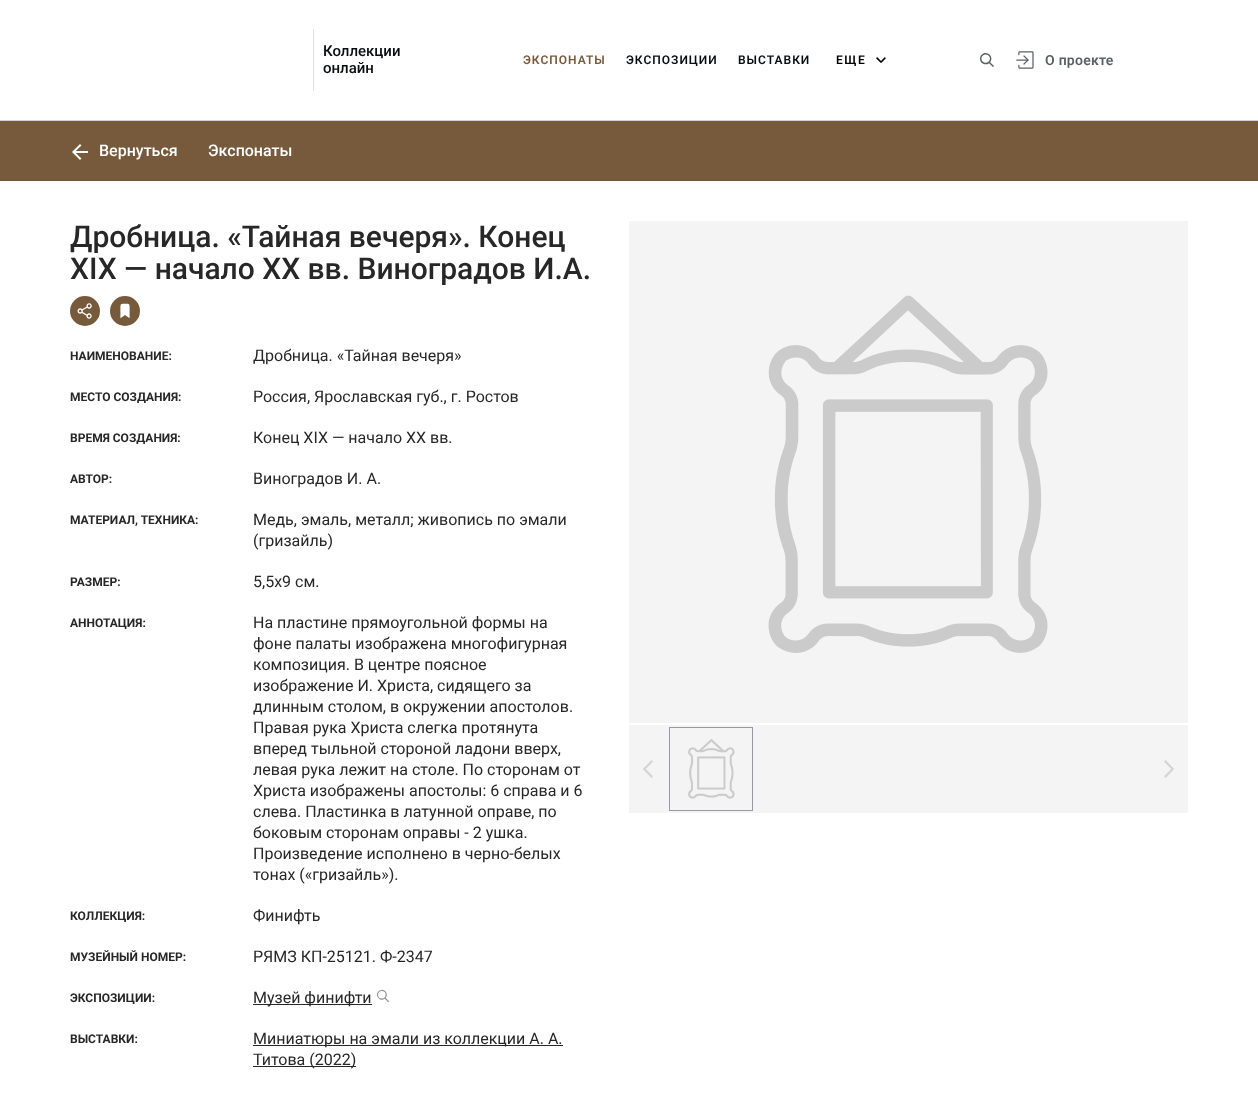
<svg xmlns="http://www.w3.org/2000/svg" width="1258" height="1107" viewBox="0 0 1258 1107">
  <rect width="100%" height="100%" fill="rgb(255,255,255)"/>
  <rect x="0" y="120" width="1258" height="1" fill="rgb(211,211,211)"/>
  <rect x="313" y="29" width="1" height="62" fill="rgb(222,222,222)"/>
  <g font-family="Roboto" font-size="15" font-weight="500" fill="rgb(10,13,16)">
    <text>
      <tspan x="323" y="56">Коллекции</tspan>
      <tspan x="323" y="73">онлайн</tspan>
    </text>
  </g>
  <text x="523" y="64" font-family="Roboto" font-size="12" font-weight="600" letter-spacing="1" fill="rgb(119,90,60)">ЭКСПОНАТЫ</text>
  <g font-family="Roboto" font-size="12" font-weight="600" letter-spacing="1" fill="rgb(10,13,16)">
    <text x="626" y="64">ЭКСПОЗИЦИИ</text>
    <text x="738" y="64">ВЫСТАВКИ</text>
  </g>
  <text x="836" y="64" font-family="Roboto" font-size="12" font-weight="600" letter-spacing="1.5" fill="rgb(0,0,0)">ЕЩЕ</text>
  <image x="876" y="57" width="10" height="6" href="pic1.png"/>
  <image x="980" y="53" width="14" height="14" href="pic2.png"/>
  <image x="1016" y="51" width="18" height="18" href="pic3.png"/>
  <text x="1045" y="65" font-family="Roboto" font-size="14" font-weight="600" letter-spacing="0.25" fill="rgb(92,95,98)">О проекте</text>
  <rect x="0" y="121" width="1258" height="60" fill="rgb(119,90,60)"/>
  <image x="72" y="144" width="16" height="16" href="pic4.png"/>
  <g font-family="Roboto" font-size="16" font-weight="500" fill="rgb(255,255,255)">
    <text x="99" y="156">Вернуться</text>
    <text x="208" y="156">Экспонаты</text>
  </g>
  <g font-family="Roboto" font-size="30" font-weight="500" fill="rgb(39,39,39)">
    <text>
      <tspan x="70" y="247">Дробница. «Тайная вечеря». Конец</tspan>
      <tspan x="70" y="279">XIX — начало ХХ вв. Виноградов И.А.</tspan>
    </text>
  </g>
  <circle cx="85" cy="311" r="15" fill="rgb(119,90,60)"/>
  <image x="77" y="303" width="15" height="16" href="pic5.png"/>
  <circle cx="125" cy="311" r="15" fill="rgb(119,90,60)"/>
  <image x="120" y="303" width="10" height="16" href="pic6.png"/>
  <rect x="629" y="221" width="559" height="502" fill="rgb(244,244,244)"/>
  <image x="768" y="295" width="280" height="358" href="pic7.png"/>
  <rect x="629" y="725" width="559" height="88" fill="rgb(244,244,244)"/>
  <image x="643" y="760" width="10" height="18" href="pic8.png"/>
  <rect x="669.5" y="727.5" width="83" height="83" fill="none" stroke="rgb(150,153,157)"/>
  <image x="688" y="739" width="47" height="60" href="pic9.png"/>
  <image x="1164" y="760" width="10" height="18" href="pic10.png"/>
  <text x="70" y="360" font-family="Roboto" font-size="12" font-weight="bold" fill="rgb(39,39,39)">НАИМЕНОВАНИЕ:</text>
  <text x="253" y="361" font-family="Roboto" font-size="16" fill="rgb(39,39,39)">Дробница. «Тайная вечеря»</text>
  <text x="70" y="401" font-family="Roboto" font-size="12" font-weight="bold" fill="rgb(39,39,39)">МЕСТО СОЗДАНИЯ:</text>
  <text x="253" y="402" font-family="Roboto" font-size="16" fill="rgb(39,39,39)">Россия, Ярославская губ., г. Ростов</text>
  <text x="70" y="442" font-family="Roboto" font-size="12" font-weight="bold" fill="rgb(39,39,39)">ВРЕМЯ СОЗДАНИЯ:</text>
  <text x="253" y="443" font-family="Roboto" font-size="16" fill="rgb(39,39,39)">Конец XIX — начало ХХ вв.</text>
  <text x="70" y="483" font-family="Roboto" font-size="12" font-weight="bold" fill="rgb(39,39,39)">АВТОР:</text>
  <text x="253" y="484" font-family="Roboto" font-size="16" fill="rgb(39,39,39)">Виноградов И. А.</text>
  <text x="70" y="524" font-family="Roboto" font-size="12" font-weight="bold" fill="rgb(39,39,39)">МАТЕРИАЛ, ТЕХНИКА:</text>
  <g font-family="Roboto" font-size="16" fill="rgb(39,39,39)">
    <text>
      <tspan x="253" y="525">Медь, эмаль, металл; живопись по эмали</tspan>
      <tspan x="253" y="546">(гризайль)</tspan>
    </text>
  </g>
  <text x="70" y="586" font-family="Roboto" font-size="12" font-weight="bold" fill="rgb(39,39,39)">РАЗМЕР:</text>
  <text x="253" y="587" font-family="Roboto" font-size="16" fill="rgb(39,39,39)">5,5х9 см.</text>
  <text x="70" y="627" font-family="Roboto" font-size="12" font-weight="bold" fill="rgb(39,39,39)">АННОТАЦИЯ:</text>
  <g font-family="Roboto" font-size="16" fill="rgb(39,39,39)">
    <text>
      <tspan x="253" y="628">На пластине прямоугольной формы на</tspan>
      <tspan x="253" y="649">фоне палаты изображена многофигурная</tspan>
      <tspan x="253" y="670">композиция. В центре поясное</tspan>
      <tspan x="253" y="691">изображение И. Христа, сидящего за</tspan>
      <tspan x="253" y="712">длинным столом, в окружении апостолов.</tspan>
      <tspan x="253" y="733">Правая рука Христа слегка протянута</tspan>
      <tspan x="253" y="754">вперед тыльной стороной ладони вверх,</tspan>
      <tspan x="253" y="775">левая рука лежит на столе. По сторонам от</tspan>
      <tspan x="253" y="796">Христа изображены апостолы: 6 справа и 6</tspan>
      <tspan x="253" y="817">слева. Пластинка в латунной оправе, по</tspan>
      <tspan x="253" y="838">боковым сторонам оправы - 2 ушка.</tspan>
      <tspan x="253" y="859">Произведение исполнено в черно-белых</tspan>
      <tspan x="253" y="880">тонах («гризайль»).</tspan>
    </text>
  </g>
  <text x="70" y="920" font-family="Roboto" font-size="12" font-weight="bold" fill="rgb(39,39,39)">КОЛЛЕКЦИЯ:</text>
  <text x="253" y="921" font-family="Roboto" font-size="16" fill="rgb(39,39,39)">Финифть</text>
  <text x="70" y="961" font-family="Roboto" font-size="12" font-weight="bold" fill="rgb(39,39,39)">МУЗЕЙНЫЙ НОМЕР:</text>
  <text x="253" y="962" font-family="Roboto" font-size="16" fill="rgb(39,39,39)">РЯМЗ КП-25121. Ф-2347</text>
  <text x="70" y="1002" font-family="Roboto" font-size="12" font-weight="bold" fill="rgb(39,39,39)">ЭКСПОЗИЦИИ:</text>
  <rect x="253" y="1004" width="119" height="1" fill="rgb(39,39,39)"/>
  <text x="253" y="1003" font-family="Roboto" font-size="16" fill="rgb(39,39,39)">Музей финифти</text>
  <image x="376" y="989" width="13" height="14" href="pic11.png"/>
  <text x="70" y="1043" font-family="Roboto" font-size="12" font-weight="bold" fill="rgb(39,39,39)">ВЫСТАВКИ:</text>
  <rect x="253" y="1045" width="310" height="1" fill="rgb(39,39,39)"/>
  <text x="253" y="1044" font-family="Roboto" font-size="16" fill="rgb(39,39,39)">Миниатюры на эмали из коллекции А. А.</text>
  <rect x="253" y="1066" width="103" height="1" fill="rgb(39,39,39)"/>
  <text x="253" y="1065" font-family="Roboto" font-size="16" fill="rgb(39,39,39)">Титова (2022)</text>
</svg>
